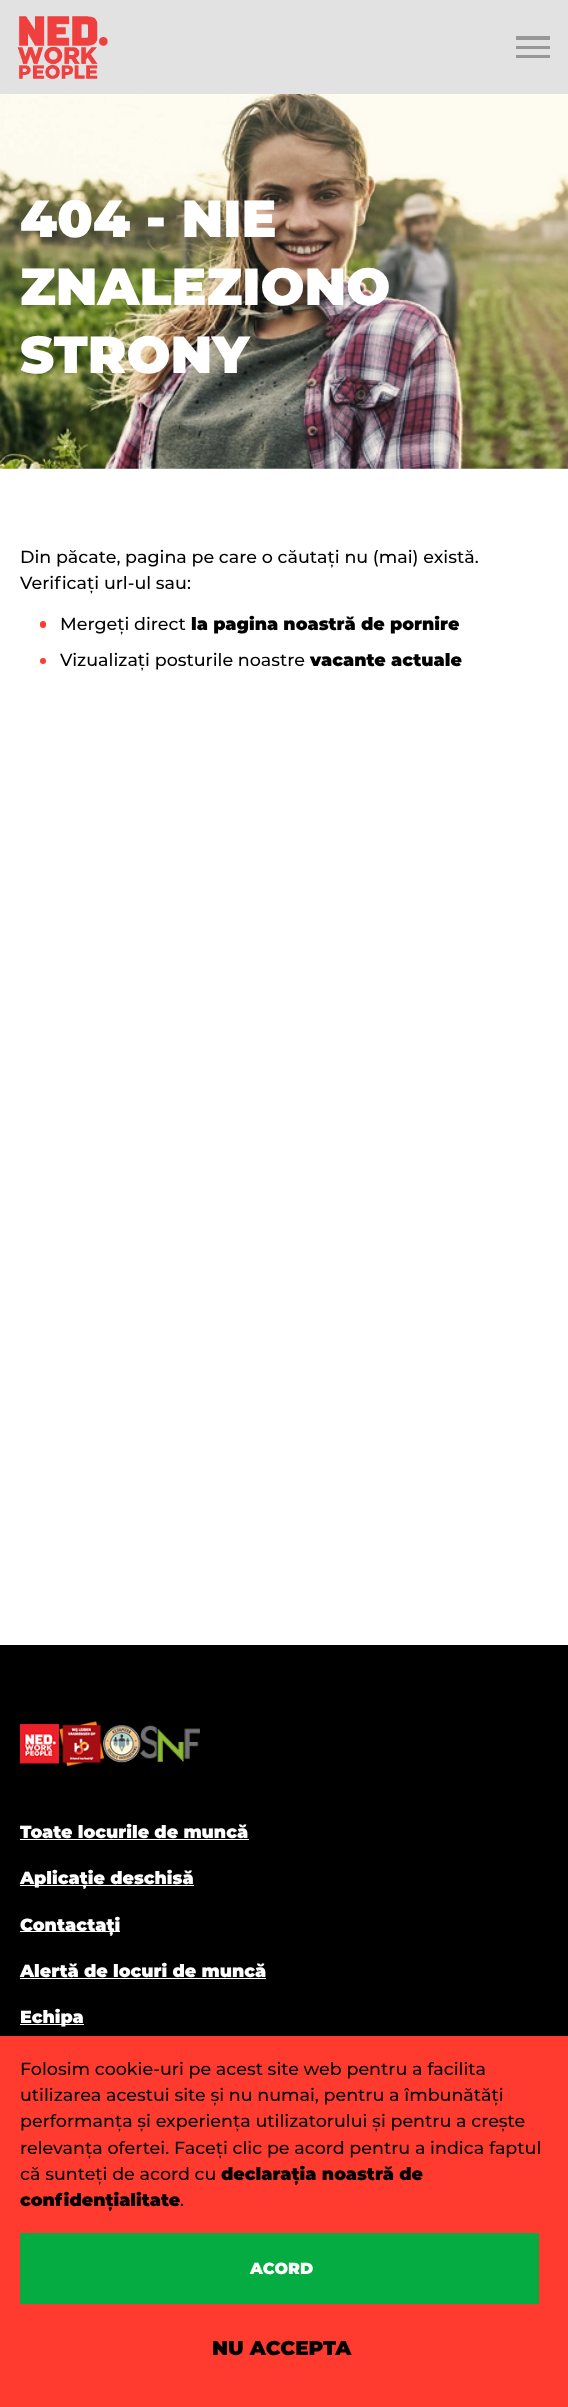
<svg xmlns="http://www.w3.org/2000/svg" width="568" height="2407" viewBox="0 0 568 2407">
  <rect width="100%" height="100%" fill="rgb(255,255,255)"/>
  <rect x="0" y="0" width="568" height="94" fill="rgb(226,226,226)"/>
  <image x="17" y="16" width="91" height="63" href="pic1.png"/>
  <rect x="516" y="36" width="34" height="4" fill="rgb(151,151,151)"/>
  <rect x="516" y="46" width="34" height="3" fill="rgb(151,151,151)"/>
  <rect x="516" y="55" width="34" height="3" fill="rgb(151,151,151)"/>
  <image x="0" y="94" width="568" height="375" href="pic2.png"/>
  <g font-family="Montserrat" font-size="52" font-weight="900" fill="rgb(255,255,255)">
    <text>
      <tspan x="20" y="237">404 - NIE</tspan>
      <tspan x="20" y="305">ZNALEZIONO</tspan>
      <tspan x="20" y="373">STRONY</tspan>
    </text>
  </g>
  <g font-family="Montserrat" font-size="17.5" font-weight="500" fill="rgb(0,0,0)">
    <text>
      <tspan x="20" y="563">Din păcate, pagina pe care o căutați nu (mai) există.</tspan>
      <tspan x="20" y="589">Verificați url-ul sau:</tspan>
    </text>
  </g>
  <rect x="40" y="621" width="6" height="7" rx="3" fill="rgb(255,59,48)"/>
  <text x="60" y="630" font-family="Montserrat" font-size="17.5" font-weight="500" fill="rgb(0,0,0)">Mergeți direct</text>
  <text x="191" y="630" font-family="Montserrat" font-size="17.5" font-weight="900" fill="rgb(0,0,0)">la pagina noastră de pornire</text>
  <circle cx="43" cy="661" r="3" fill="rgb(255,59,48)"/>
  <text x="60" y="666" font-family="Montserrat" font-size="17.5" font-weight="500" fill="rgb(0,0,0)">Vizualizați posturile noastre</text>
  <text x="310" y="666" font-family="Montserrat" font-size="17.5" font-weight="900" fill="rgb(0,0,0)">vacante actuale</text>
  <rect x="0" y="1645" width="568" height="391" fill="rgb(0,0,0)"/>
  <image x="20" y="1721" width="180" height="45" href="pic3.png"/>
  <text x="20" y="1838" font-family="Montserrat" font-size="17.5" font-weight="900" fill="rgb(255,255,255)">Toate locurile de muncă</text>
  <rect x="20" y="1839" width="229" height="1" fill="rgb(255,255,255)"/>
  <rect x="20" y="1885" width="174" height="1" fill="rgb(255,255,255)"/>
  <text x="20" y="1884" font-family="Montserrat" font-size="17.5" font-weight="900" fill="rgb(255,255,255)">Aplicație deschisă</text>
  <rect x="20" y="1931" width="100" height="1" fill="rgb(255,255,255)"/>
  <g font-family="Montserrat" font-size="17.5" font-weight="900" fill="rgb(255,255,255)">
    <text x="20" y="1931">Contactați</text>
    <text x="20" y="1977">Alertă de locuri de muncă</text>
  </g>
  <rect x="20" y="1978" width="246" height="1" fill="rgb(255,255,255)"/>
  <rect x="20" y="2024" width="64" height="1" fill="rgb(255,255,255)"/>
  <text x="20" y="2023" font-family="Montserrat" font-size="17.5" font-weight="900" fill="rgb(255,255,255)">Echipa</text>
  <rect x="0" y="2036" width="568" height="371" fill="rgb(255,59,48)"/>
  <g font-family="Montserrat" font-size="17.5" font-weight="500" fill="rgb(0,0,0)">
    <text>
      <tspan x="20" y="2075">Folosim cookie-uri pe acest site web pentru a facilita</tspan>
      <tspan x="20" y="2101">utilizarea acestui site și nu numai, pentru a îmbunătăți</tspan>
      <tspan x="20" y="2127">performanța și experiența utilizatorului și pentru a crește</tspan>
      <tspan x="20" y="2154">relevanța ofertei. Faceți clic pe acord pentru a indica faptul</tspan>
      <tspan x="20" y="2180">că sunteți de acord cu</tspan>
    </text>
  </g>
  <g font-family="Montserrat" font-size="17.5" font-weight="900" fill="rgb(0,0,0)">
    <text x="221" y="2180">declarația noastră de</text>
    <text x="20" y="2206">confidențialitate</text>
  </g>
  <text x="180" y="2206" font-family="Montserrat" font-size="17.5" font-weight="500" fill="rgb(0,0,0)">.</text>
  <rect x="20" y="2233" width="519" height="71" fill="rgb(5,172,65)"/>
  <text x="250" y="2274" font-family="Montserrat" font-size="16" font-weight="900" fill="rgb(255,255,255)">ACORD</text>
  <text x="212" y="2355" font-family="Montserrat" font-size="20" font-weight="900" fill="rgb(0,0,0)">NU ACCEPTA</text>
</svg>
